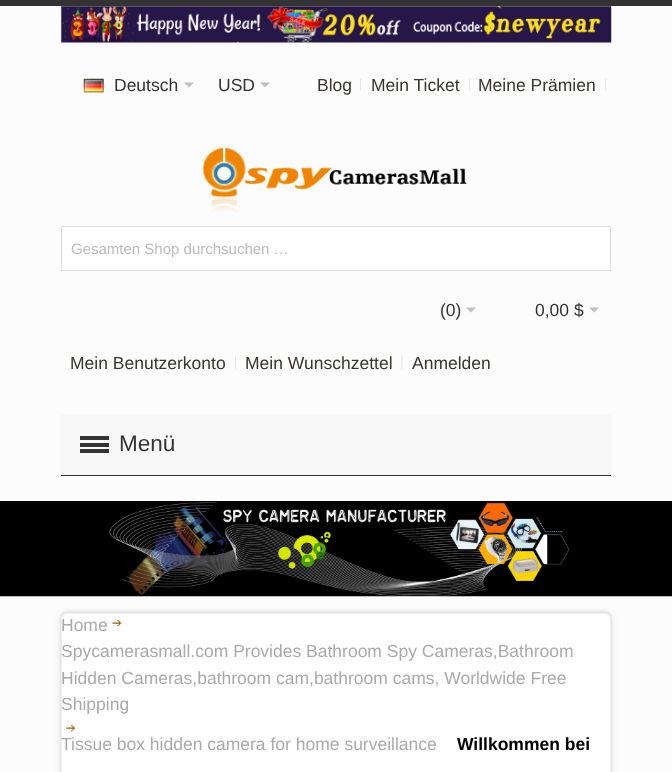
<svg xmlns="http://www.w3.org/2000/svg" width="672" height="772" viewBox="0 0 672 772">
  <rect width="100%" height="100%" fill="rgb(51,51,51)"/>
  <rect x="0" y="6" width="672" height="766" fill="rgb(252,252,252)"/>
  <image x="61" y="6" width="551" height="37" href="pic1.png"/>
  <image x="83" y="78" width="21" height="15" href="pic2.png"/>
  <text x="114" y="91" font-family="Liberation Sans" font-size="17.5" fill="rgb(51,51,51)">Deutsch</text>
  <path d="M184 82.5H194L189 87.5Z" fill="rgb(192,192,192)"/>
  <text x="218" y="91" font-family="Liberation Sans" font-size="17.5" fill="rgb(51,51,51)">USD</text>
  <path d="M260 82.5H270L265 87.5Z" fill="rgb(192,192,192)"/>
  <image x="360" y="79" width="1" height="12" href="pic3.png"/>
  <text x="317" y="91" font-family="Liberation Sans" font-size="17.5" fill="rgb(57,54,47)">Blog</text>
  <image x="469" y="79" width="1" height="12" href="pic3.png"/>
  <text x="371" y="91" font-family="Liberation Sans" font-size="17.5" fill="rgb(57,54,47)">Mein Ticket</text>
  <image x="605" y="79" width="1" height="12" href="pic3.png"/>
  <text x="478" y="91" font-family="Liberation Sans" font-size="17.5" fill="rgb(57,54,47)">Meine Prämien</text>
  <image x="202" y="147" width="265" height="65" href="pic4.png"/>
  <rect x="61.5" y="226.5" width="549" height="44" fill="rgb(255,255,255)" stroke="rgb(221,221,221)"/>
  <text x="71" y="254" font-family="Liberation Sans" font-size="15" fill="rgb(187,187,187)">Gesamten Shop durchsuchen …</text>
  <text x="440" y="316" font-family="Liberation Sans" font-size="17.5" fill="rgb(51,51,51)">(0)</text>
  <path d="M466 307.5H476L471 312.5Z" fill="rgb(192,192,192)"/>
  <text x="535" y="316" font-family="Liberation Sans" font-size="17.5" fill="rgb(51,51,51)">0,00 $</text>
  <path d="M589 307.5H599L594 312.5Z" fill="rgb(192,192,192)"/>
  <text x="70" y="369" font-family="Liberation Sans" font-size="17.5" fill="rgb(57,54,47)">Mein Benutzerkonto</text>
  <image x="235" y="356" width="1" height="13" href="pic5.png"/>
  <text x="245" y="369" font-family="Liberation Sans" font-size="17.5" fill="rgb(57,54,47)">Mein Wunschzettel</text>
  <image x="401" y="356" width="2" height="13" href="pic6.png"/>
  <text x="412" y="369" font-family="Liberation Sans" font-size="17.5" fill="rgb(57,54,47)">Anmelden</text>
  <rect x="61" y="414" width="550" height="61" fill="rgb(248,248,248)"/>
  <rect x="80" y="436" width="29" height="4" fill="rgb(51,51,51)"/>
  <rect x="80" y="443" width="29" height="4" fill="rgb(51,51,51)"/>
  <rect x="80" y="449" width="29" height="4" fill="rgb(51,51,51)"/>
  <text x="119" y="451" font-family="Liberation Sans" font-size="22.5" fill="rgb(51,51,51)">Menü</text>
  <rect x="61" y="475" width="550" height="1" fill="rgb(51,51,51)"/>
  <rect x="0" y="501" width="672" height="1" fill="rgb(0,0,0)"/>
  <image x="0" y="502" width="672" height="95" href="pic7.png"/>
  <rect x="61" y="615" width="550" height="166" fill="rgba(0,0,0,0.15)" filter="blur(3px)"/>
  <rect x="61" y="610" width="550" height="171" rx="6" fill="rgba(0,0,0,0.05)" filter="blur(1px)"/>
  <rect x="61.5" y="613.5" width="549" height="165" rx="5.5" fill="rgb(255,255,255)" stroke="rgb(238,238,238)"/>
  <text x="61" y="631" font-family="Liberation Sans" font-size="17.5" fill="rgb(170,170,170)">Home</text>
  <image x="112" y="620" width="10" height="7" href="pic8.png"/>
  <g font-family="Liberation Sans" font-size="17.5" fill="rgb(170,170,170)">
    <text>
      <tspan x="61" y="657">Spycamerasmall.com Provides Bathroom Spy Cameras,Bathroom</tspan>
      <tspan x="61" y="684">Hidden Cameras,bathroom cam,bathroom cams, Worldwide Free</tspan>
      <tspan x="61" y="710">Shipping</tspan>
    </text>
  </g>
  <image x="66" y="725" width="9" height="7" href="pic9.png"/>
  <text x="61" y="750" font-family="Liberation Sans" font-size="17.5" fill="rgb(170,170,170)">Tissue box hidden camera for home surveillance</text>
  <text x="457" y="750" font-family="Liberation Sans" font-size="17.5" font-weight="bold" fill="rgb(0,0,0)">Willkommen bei</text>
</svg>
